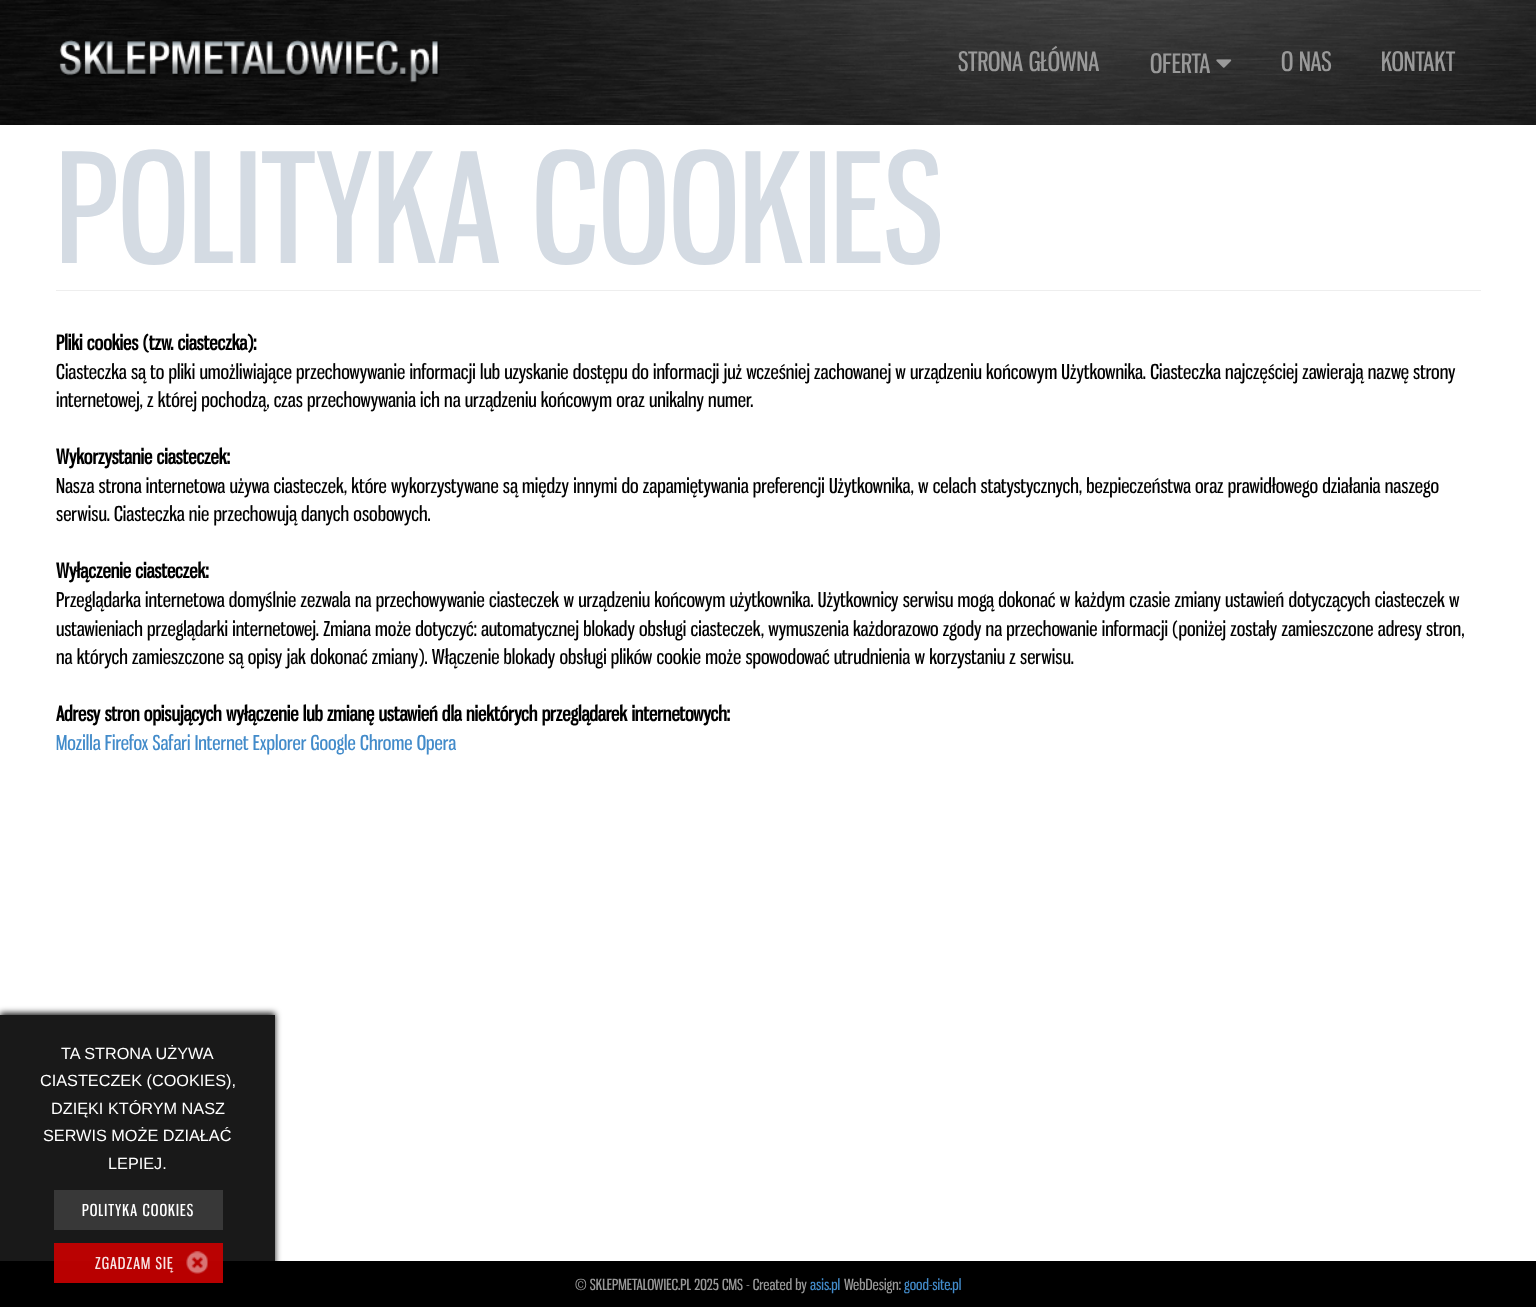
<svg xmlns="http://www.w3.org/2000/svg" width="1536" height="1307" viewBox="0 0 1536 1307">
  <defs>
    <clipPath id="clip1"><path d="M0 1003H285V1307H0ZM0 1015H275V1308H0Z" clip-rule="evenodd"/></clipPath>
  </defs>
  <rect width="100%" height="100%" fill="rgb(255,255,255)"/>
  <rect x="0" y="1015" width="275" height="246" fill="rgb(25,25,25)"/>
  <rect x="54" y="1243" width="169" height="18" fill="rgb(186,2,2)"/>
  <image x="0" y="0" width="1536" height="125" href="pic1.png"/>
  <image x="59" y="40" width="381" height="45" href="pic2.png"/>
  <g font-family="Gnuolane" font-size="26.25" fill="rgb(153,153,153)">
    <text x="958" y="71">STRONA GŁÓWNA</text>
    <text x="1150" y="73">OFERTA</text>
  </g>
  <image x="1216" y="59" width="16" height="9" href="pic3.png"/>
  <g font-family="Gnuolane" font-size="26.25" fill="rgb(153,153,153)">
    <text x="1281" y="71">O NAS</text>
    <text x="1381" y="71">KONTAKT</text>
  </g>
  <rect x="56" y="290" width="1425" height="1" fill="rgb(238,238,238)"/>
  <text x="56" y="263" font-family="Gnuolane" font-size="150" fill="rgb(212,219,227)">POLITYKA COOKIES</text>
  <text x="56" y="350" font-family="Gnuolane" font-size="20" font-weight="bold" fill="rgb(0,0,0)">Pliki cookies (tzw. ciasteczka):</text>
  <g font-family="Gnuolane" font-size="20" fill="rgb(0,0,0)">
    <text>
      <tspan x="56" y="379">Ciasteczka są to pliki umożliwiające przechowywanie informacji lub uzyskanie dostępu do informacji już wcześniej zachowanej w urządzeniu końcowym Użytkownika. Ciasteczka najczęściej zawierają nazwę strony</tspan>
      <tspan x="56" y="407">internetowej, z której pochodzą, czas przechowywania ich na urządzeniu końcowym oraz unikalny numer.</tspan>
    </text>
  </g>
  <text x="56" y="464" font-family="Gnuolane" font-size="20" font-weight="bold" fill="rgb(0,0,0)">Wykorzystanie ciasteczek:</text>
  <g font-family="Gnuolane" font-size="20" fill="rgb(0,0,0)">
    <text>
      <tspan x="56" y="493">Nasza strona internetowa używa ciasteczek, które wykorzystywane są między innymi do zapamiętywania preferencji Użytkownika, w celach statystycznych, bezpieczeństwa oraz prawidłowego działania naszego</tspan>
      <tspan x="56" y="521">serwisu. Ciasteczka nie przechowują danych osobowych.</tspan>
    </text>
  </g>
  <text x="56" y="578" font-family="Gnuolane" font-size="20" font-weight="bold" fill="rgb(0,0,0)">Wyłączenie ciasteczek:</text>
  <g font-family="Gnuolane" font-size="20" fill="rgb(0,0,0)">
    <text>
      <tspan x="56" y="607">Przeglądarka internetowa domyślnie zezwala na przechowywanie ciasteczek w urządzeniu końcowym użytkownika. Użytkownicy serwisu mogą dokonać w każdym czasie zmiany ustawień dotyczących ciasteczek w</tspan>
      <tspan x="56" y="636">ustawieniach przeglądarki internetowej. Zmiana może dotyczyć: automatycznej blokady obsługi ciasteczek, wymuszenia każdorazowo zgody na przechowanie informacji (poniżej zostały zamieszczone adresy stron,</tspan>
      <tspan x="56" y="664">na których zamieszczone są opisy jak dokonać zmiany). Włączenie blokady obsługi plików cookie może spowodować utrudnienia w korzystaniu z serwisu.</tspan>
    </text>
  </g>
  <text x="56" y="721" font-family="Gnuolane" font-size="20" font-weight="bold" fill="rgb(0,0,0)">Adresy stron opisujących wyłączenie lub zmianę ustawień dla niektórych przeglądarek internetowych:</text>
  <text x="56" y="750" font-family="Gnuolane" font-size="20" fill="rgb(66,139,202)">Mozilla Firefox Safari Internet Explorer Google Chrome Opera</text>
  <rect x="0" y="1261" width="1536" height="46" fill="rgb(0,0,0)"/>
  <rect x="54" y="1261" width="169" height="22" fill="rgb(184,0,0)"/>
  <g clip-path="url(#clip1)">
    <rect x="0" y="1013" width="275" height="292" fill="rgba(0,0,0,0.9)" filter="blur(3px)"/>
  </g>
  <g font-family="Liberation Sans" font-size="16.25" fill="rgb(255,255,255)">
    <text x="61" y="1059">TA STRONA UŻYWA</text>
    <text x="40" y="1086">CIASTECZEK (COOKIES),</text>
    <text x="51" y="1114">DZIĘKI KTÓRYM NASZ</text>
    <text x="43" y="1141">SERWIS MOŻE DZIAŁAĆ</text>
    <text x="108" y="1169">LEPIEJ.</text>
  </g>
  <rect x="54" y="1190" width="169" height="40" fill="rgb(56,56,56)"/>
  <text x="82" y="1216" font-family="Gnuolane" font-size="16.25" letter-spacing="1" fill="rgb(255,255,255)">POLITYKA COOKIES</text>
  <image x="186" y="1251" width="22" height="23" href="pic4.png"/>
  <text x="95" y="1269" font-family="Gnuolane" font-size="16.25" letter-spacing="1" fill="rgb(248,230,230)">ZGADZAM SIĘ</text>
  <text x="575" y="1290" font-family="Gnuolane" font-size="15" fill="rgb(153,153,153)">© SKLEPMETALOWIEC.PL 2025 CMS - Created by</text>
  <text x="810" y="1290" font-family="Gnuolane" font-size="15" fill="rgb(66,139,202)">asis.pl</text>
  <text x="844" y="1290" font-family="Gnuolane" font-size="15" fill="rgb(153,153,153)">WebDesign:</text>
  <text x="904" y="1290" font-family="Gnuolane" font-size="15" fill="rgb(66,139,202)">good-site.pl</text>
</svg>
